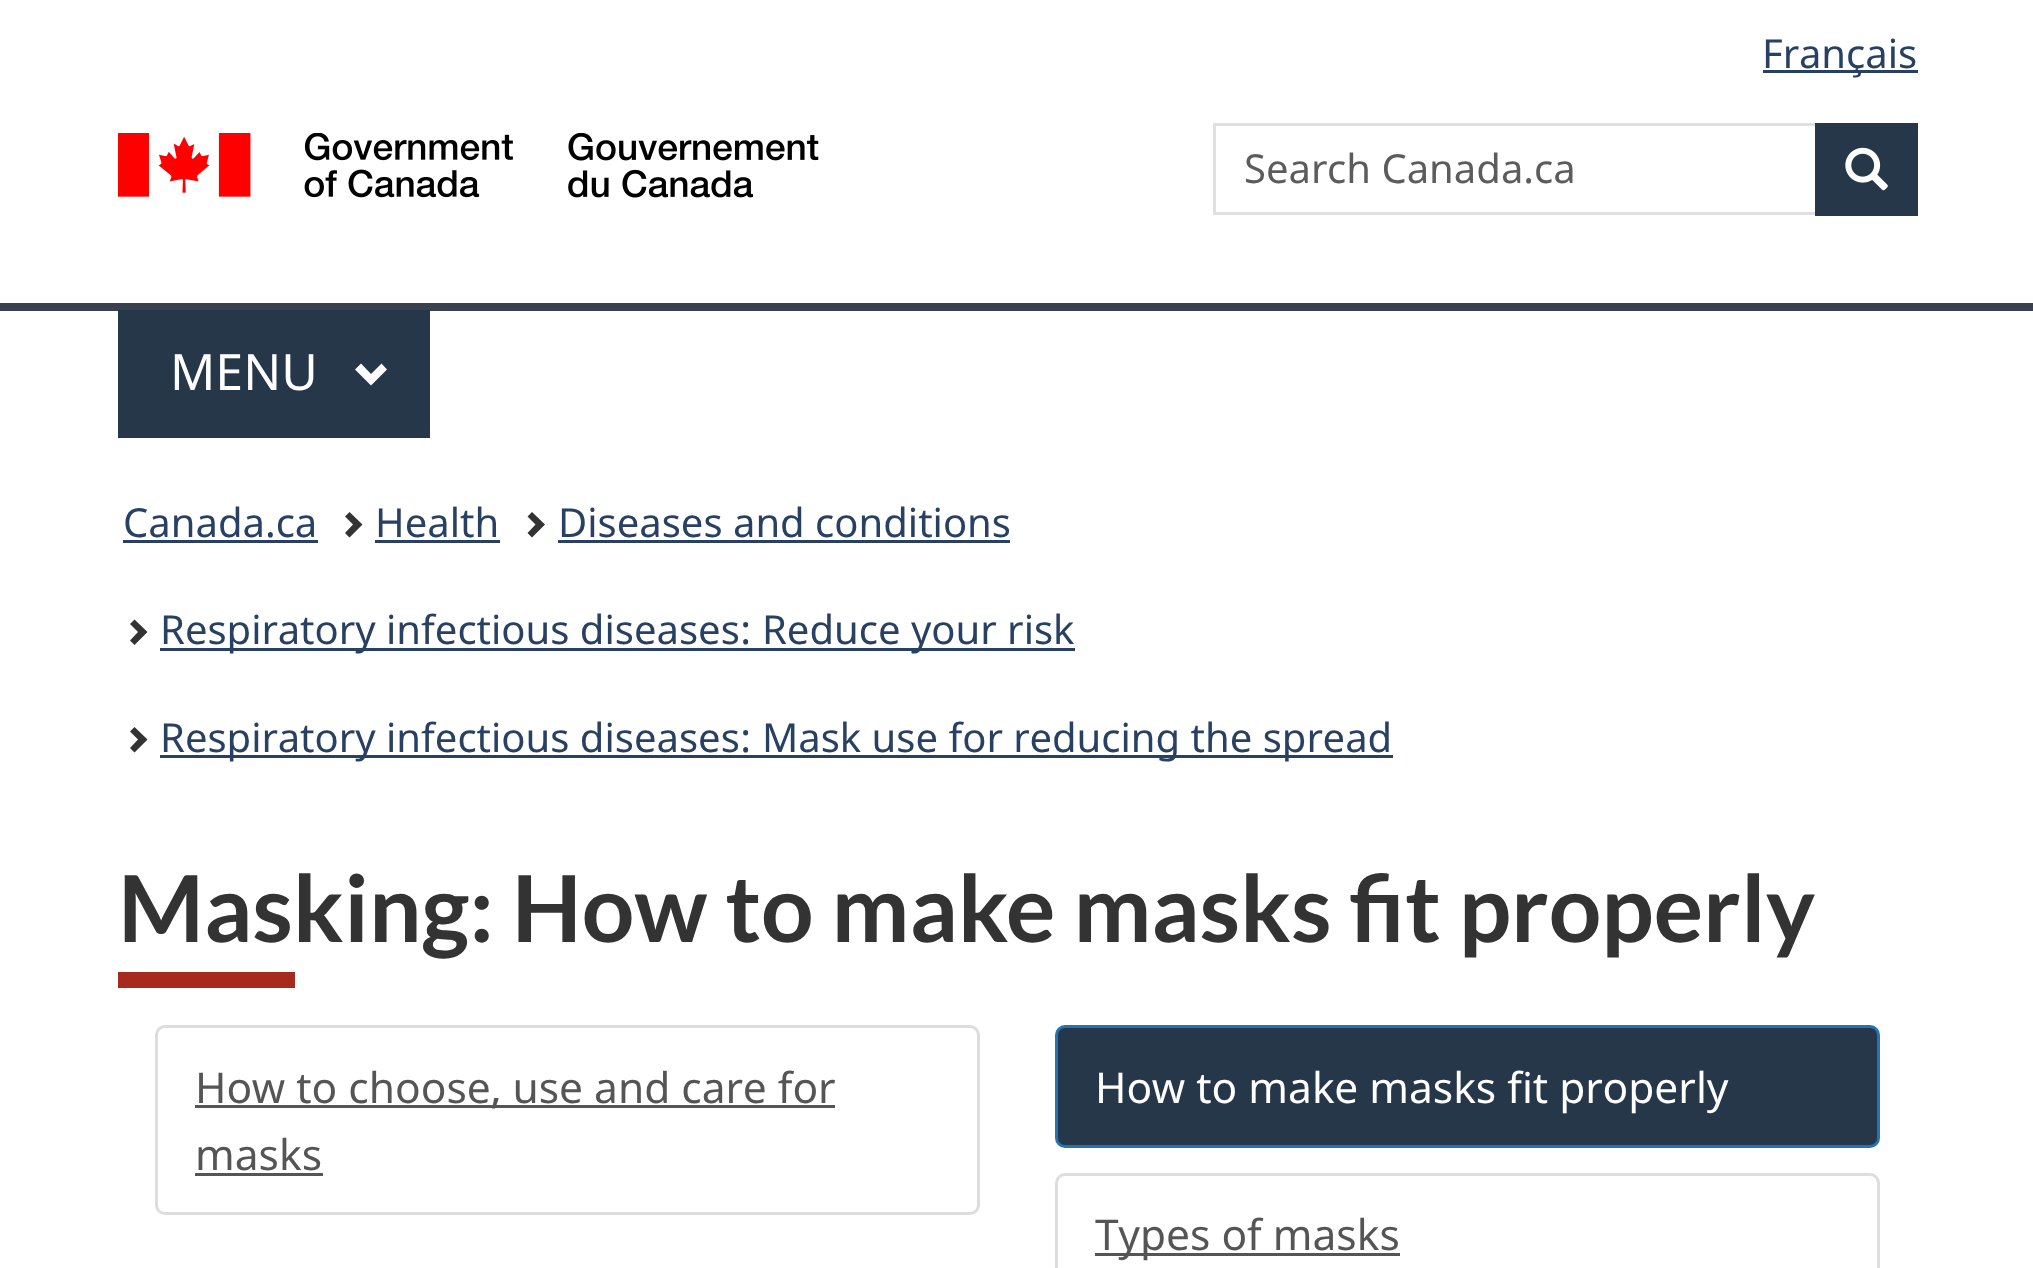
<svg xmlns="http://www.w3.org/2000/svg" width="2033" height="1268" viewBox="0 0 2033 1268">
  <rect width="100%" height="100%" fill="rgb(255,255,255)"/>
  <rect x="1763" y="70" width="155" height="3" fill="rgb(40,65,98)"/>
  <text x="1762" y="68" font-family="Noto Sans" font-size="40" fill="rgb(40,65,98)">Français</text>
  <image x="118" y="133" width="701" height="65" href="pic1.png"/>
  <rect x="1214.5" y="124.5" width="702" height="89" fill="none" stroke="rgb(224,224,224)" stroke-width="3"/>
  <text x="1244" y="183" font-family="Noto Sans" font-size="40" fill="rgb(92,92,92)">Search Canada.ca</text>
  <rect x="1815" y="123" width="103" height="93" fill="rgb(38,55,74)"/>
  <image x="1845" y="147" width="43" height="44" href="pic2.png"/>
  <rect x="0" y="303" width="2033" height="8" fill="rgb(56,65,77)"/>
  <rect x="118" y="310" width="312" height="128" fill="rgb(38,55,74)"/>
  <text x="170" y="390" font-family="Noto Sans" font-size="50" fill="rgb(255,255,255)">MENU</text>
  <path d="M387 369.5L371 385.5L355 369.5L361 363.5L371 374L381.5 363.5Z" fill="rgb(255,255,255)"/>
  <text x="123" y="537" font-family="Noto Sans" font-size="40" fill="rgb(40,65,98)">Canada.ca</text>
  <rect x="123" y="540" width="195" height="3" fill="rgb(40,65,98)"/>
  <path d="M362.5 524.5L349.5 537.5L345 533L353 524.5L345 516.5L349.5 512Z" fill="rgb(51,51,51)"/>
  <text x="375" y="537" font-family="Noto Sans" font-size="40" fill="rgb(40,65,98)">Health</text>
  <rect x="375" y="540" width="125" height="3" fill="rgb(40,65,98)"/>
  <path d="M545 524.5L532 537.5L527.5 533L535.5 524.5L527.5 516.5L532 512Z" fill="rgb(51,51,51)"/>
  <text x="558" y="537" font-family="Noto Sans" font-size="40" fill="rgb(40,65,98)">Diseases and conditions</text>
  <rect x="558" y="540" width="452" height="3" fill="rgb(40,65,98)"/>
  <path d="M147.5 632L134.5 645L130 640.5L138 632L130 624L134.5 619.5Z" fill="rgb(51,51,51)"/>
  <rect x="160" y="648" width="915" height="3" fill="rgb(40,65,98)"/>
  <text x="160" y="644" font-family="Noto Sans" font-size="40" fill="rgb(40,65,98)">Respiratory infectious diseases: Reduce your risk</text>
  <path d="M147.5 739.5L134.5 752.5L130 748L138 739.5L130 731.5L134.5 727Z" fill="rgb(51,51,51)"/>
  <rect x="160" y="755" width="1233" height="3" fill="rgb(40,65,98)"/>
  <text x="160" y="752" font-family="Noto Sans" font-size="40" fill="rgb(40,65,98)">Respiratory infectious diseases: Mask use for reducing the spread</text>
  <rect x="118" y="972" width="177" height="16" fill="rgb(166,42,30)"/>
  <text x="118" y="942" font-family="Lato" font-size="92.5" font-weight="bold" fill="rgb(51,51,51)">Masking: How to make masks fit properly</text>
  <rect x="156.5" y="1026.5" width="822" height="187" rx="8.5" fill="none" stroke="rgb(221,221,221)" stroke-width="3"/>
  <rect x="195" y="1105" width="640" height="3" fill="rgb(85,85,85)"/>
  <g font-family="Noto Sans" font-size="42.5" fill="rgb(85,85,85)">
    <text>
      <tspan x="195" y="1103">How to choose, use and care for</tspan>
      <tspan x="195" y="1170">masks</tspan>
    </text>
  </g>
  <rect x="195" y="1173" width="128" height="3" fill="rgb(85,85,85)"/>
  <rect x="1056.5" y="1026.5" width="822" height="120" rx="8.5" fill="rgb(38,55,74)" stroke="rgb(37,114,180)" stroke-width="3"/>
  <text x="1095" y="1103" font-family="Noto Sans" font-size="42.5" fill="rgb(255,255,255)">How to make masks fit properly</text>
  <rect x="1056.5" y="1174.5" width="822" height="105" rx="8.5" fill="none" stroke="rgb(221,221,221)" stroke-width="3"/>
  <rect x="1095" y="1253" width="305" height="3" fill="rgb(85,85,85)"/>
  <text x="1095" y="1250" font-family="Noto Sans" font-size="42.5" fill="rgb(85,85,85)">Types of masks</text>
</svg>
